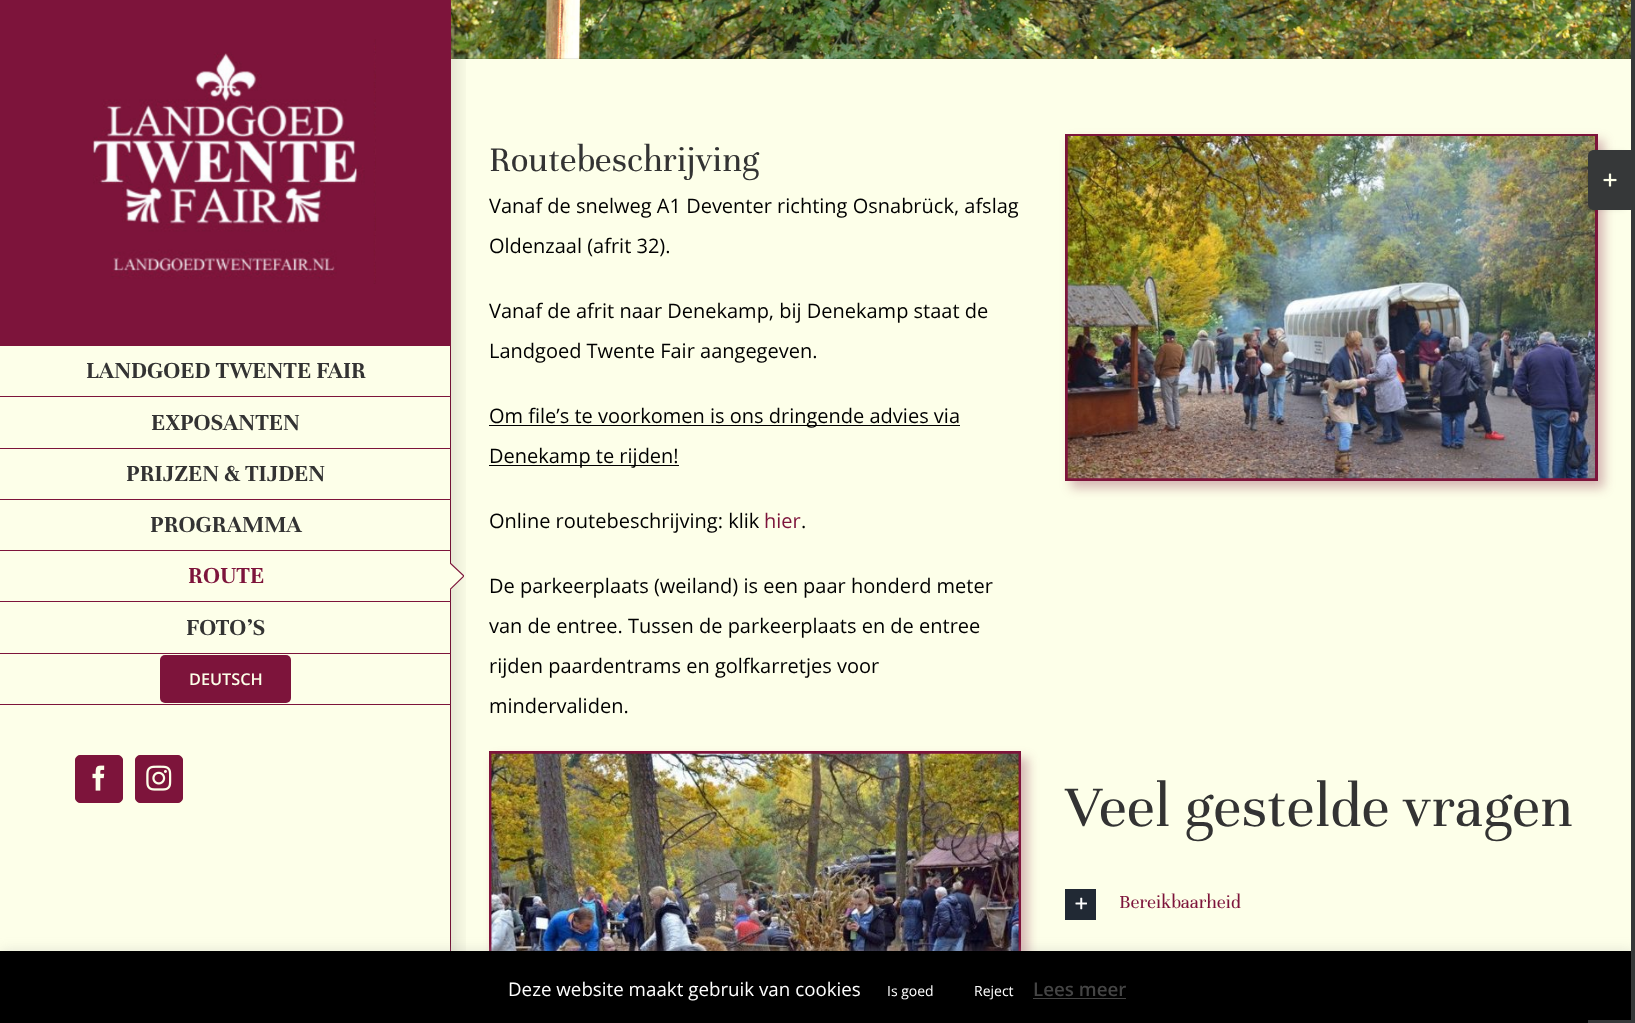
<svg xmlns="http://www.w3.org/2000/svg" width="1635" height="1023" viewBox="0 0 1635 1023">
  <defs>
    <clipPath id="clip1"><rect x="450" y="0" width="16" height="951"/></clipPath>
    <clipPath id="clip2"><rect x="450" y="563" width="14" height="28"/></clipPath>
  </defs>
  <rect width="100%" height="100%" fill="rgb(255,255,255)"/>
  <image x="451" y="58" width="1180" height="1" href="pic1.png"/>
  <image x="451" y="0" width="1180" height="59" href="pic2.png"/>
  <rect x="450" y="346" width="1" height="605" fill="rgb(125,20,59)"/>
  <rect x="0" y="346" width="450" height="605" fill="rgb(253,255,233)"/>
  <rect x="451" y="59" width="1180" height="892" fill="rgb(253,255,233)"/>
  <g clip-path="url(#clip1)">
    <rect x="438" y="6" width="18" height="1012" fill="rgba(0,0,0,0.14)" filter="blur(9.5px)"/>
  </g>
  <rect x="0" y="0" width="451" height="346" fill="rgb(125,20,59)"/>
  <image x="93" y="39" width="283" height="245" href="pic3.png"/>
  <rect x="0" y="396" width="451" height="1" fill="rgb(125,20,59)"/>
  <text x="86" y="378" font-family="Unna" font-size="25" font-weight="bold" fill="rgb(51,51,51)">LANDGOED TWENTE FAIR</text>
  <rect x="0" y="448" width="451" height="1" fill="rgb(125,20,59)"/>
  <text x="151" y="430" font-family="Unna" font-size="25" font-weight="bold" fill="rgb(51,51,51)">EXPOSANTEN</text>
  <rect x="0" y="499" width="451" height="1" fill="rgb(125,20,59)"/>
  <text x="126" y="481" font-family="Unna" font-size="25" font-weight="bold" fill="rgb(51,51,51)">PRIJZEN &amp; TIJDEN</text>
  <rect x="0" y="550" width="451" height="1" fill="rgb(125,20,59)"/>
  <text x="150" y="532" font-family="Unna" font-size="25" font-weight="bold" fill="rgb(51,51,51)">PROGRAMMA</text>
  <rect x="0" y="601" width="451" height="1" fill="rgb(125,20,59)"/>
  <text x="188" y="583" font-family="Unna" font-size="25" font-weight="bold" fill="rgb(125,20,59)">ROUTE</text>
  <g clip-path="url(#clip2)">
    <path d="M449 562L464 576L449 590.5Z" fill="rgb(253,255,233)" stroke="rgb(125,20,59)" stroke-width="1.2"/>
  </g>
  <rect x="0" y="653" width="451" height="1" fill="rgb(125,20,59)"/>
  <text x="186" y="635" font-family="Unna" font-size="25" font-weight="bold" fill="rgb(51,51,51)">FOTO’S</text>
  <rect x="0" y="704" width="451" height="1" fill="rgb(125,20,59)"/>
  <rect x="160" y="655" width="131" height="48" rx="5" fill="rgb(125,20,59)"/>
  <text x="189" y="685" font-family="Open Sans" font-size="16.25" font-weight="600" fill="rgb(253,255,233)">DEUTSCH</text>
  <rect x="75.5" y="755.5" width="47" height="47" rx="4.5" fill="rgb(125,20,59)" stroke="rgb(125,20,59)"/>
  <image x="92" y="765" width="13" height="26" href="pic4.png"/>
  <rect x="135.5" y="755.5" width="47" height="47" rx="4.5" fill="rgb(125,20,59)" stroke="rgb(125,20,59)"/>
  <image x="146" y="765" width="26" height="26" href="pic5.png"/>
  <text x="489" y="171" font-family="Unna" font-size="37.5" fill="rgb(51,51,51)">Routebeschrijving</text>
  <g font-family="Open Sans" font-size="20" fill="rgb(0,0,0)">
    <text x="489" y="213">Vanaf de snelweg A1 Deventer richting Osnabrück, afslag</text>
    <text x="489" y="253">Oldenzaal (afrit 32).</text>
    <text x="489" y="318">Vanaf de afrit naar Denekamp, bij Denekamp staat de</text>
    <text x="489" y="358">Landgoed Twente Fair aangegeven.</text>
  </g>
  <rect x="489" y="425" width="471" height="1" fill="rgb(0,0,0)"/>
  <text x="489" y="423" font-family="Open Sans" font-size="20" fill="rgb(0,0,0)">Om file’s te voorkomen is ons dringende advies via</text>
  <rect x="489" y="465" width="190" height="1" fill="rgb(0,0,0)"/>
  <g font-family="Open Sans" font-size="20" fill="rgb(0,0,0)">
    <text x="489" y="463">Denekamp te rijden!</text>
    <text x="489" y="528">Online routebeschrijving: klik</text>
  </g>
  <text x="764" y="528" font-family="Open Sans" font-size="20" fill="rgb(125,20,59)">hier</text>
  <g font-family="Open Sans" font-size="20" fill="rgb(0,0,0)">
    <text x="801" y="528">.</text>
    <text x="489" y="593">De parkeerplaats (weiland) is een paar honderd meter</text>
    <text x="489" y="633">van de entree. Tussen de parkeerplaats en de entree</text>
    <text x="489" y="673">rijden paardentrams en golfkarretjes voor</text>
    <text x="489" y="713">mindervaliden.</text>
  </g>
  <rect x="1071" y="140" width="533" height="348" fill="rgba(125,20,59,0.3)" filter="blur(5.5px)"/>
  <rect x="1066.5" y="135.5" width="530" height="344" fill="none" stroke="rgb(125,20,59)" stroke-width="3"/>
  <image x="1067" y="136" width="528" height="343" href="pic6.png"/>
  <rect x="495" y="758" width="533" height="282" fill="rgba(125,20,59,0.3)" filter="blur(5.5px)"/>
  <rect x="490.5" y="752.5" width="529" height="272" fill="none" stroke="rgb(125,20,59)" stroke-width="3"/>
  <image x="491" y="753" width="528" height="198" href="pic7.png"/>
  <text x="1065" y="826" font-family="Unna" font-size="62.5" fill="rgb(51,51,51)">Veel gestelde vragen</text>
  <rect x="1065" y="889" width="31" height="31" fill="rgb(33,41,52)"/>
  <image x="1075" y="897" width="12" height="13" href="pic8.png"/>
  <text x="1119" y="908" font-family="Unna" font-size="20" fill="rgb(125,20,59)">Bereikbaarheid</text>
  <rect x="0" y="950" width="1635" height="73" fill="rgba(172,171,171,0.3)" filter="blur(6px)"/>
  <rect x="0" y="951" width="1631" height="72" fill="rgb(0,0,0)"/>
  <rect x="1588" y="1020" width="47" height="3" fill="rgb(54,56,57)"/>
  <rect x="1586" y="153" width="39" height="55" rx="4" fill="rgba(0,0,0,0.14)" filter="blur(3px)"/>
  <rect x="1631" y="0" width="4" height="1020" fill="rgb(54,56,57)"/>
  <path d="M1594 150H1631V210H1594C1590.5 210 1588 207.5 1588 204V156C1588 152.5 1590.5 150 1594 150Z" fill="rgb(54,56,57)"/>
  <image x="1603" y="173" width="14" height="14" href="pic9.png"/>
  <text x="508" y="996" font-family="Open Sans" font-size="18.75" fill="rgb(255,255,255)">Deze website maakt gebruik van cookies</text>
  <g font-family="Open Sans" font-size="14" fill="rgb(255,255,255)">
    <text x="887" y="996">Is goed</text>
    <text x="974" y="996">Reject</text>
  </g>
  <text x="1033" y="996" font-family="Open Sans" font-size="18.75" font-weight="600" fill="rgb(68,68,68)">Lees meer</text>
  <rect x="1033" y="998" width="93" height="1" fill="rgb(68,68,68)"/>
</svg>
